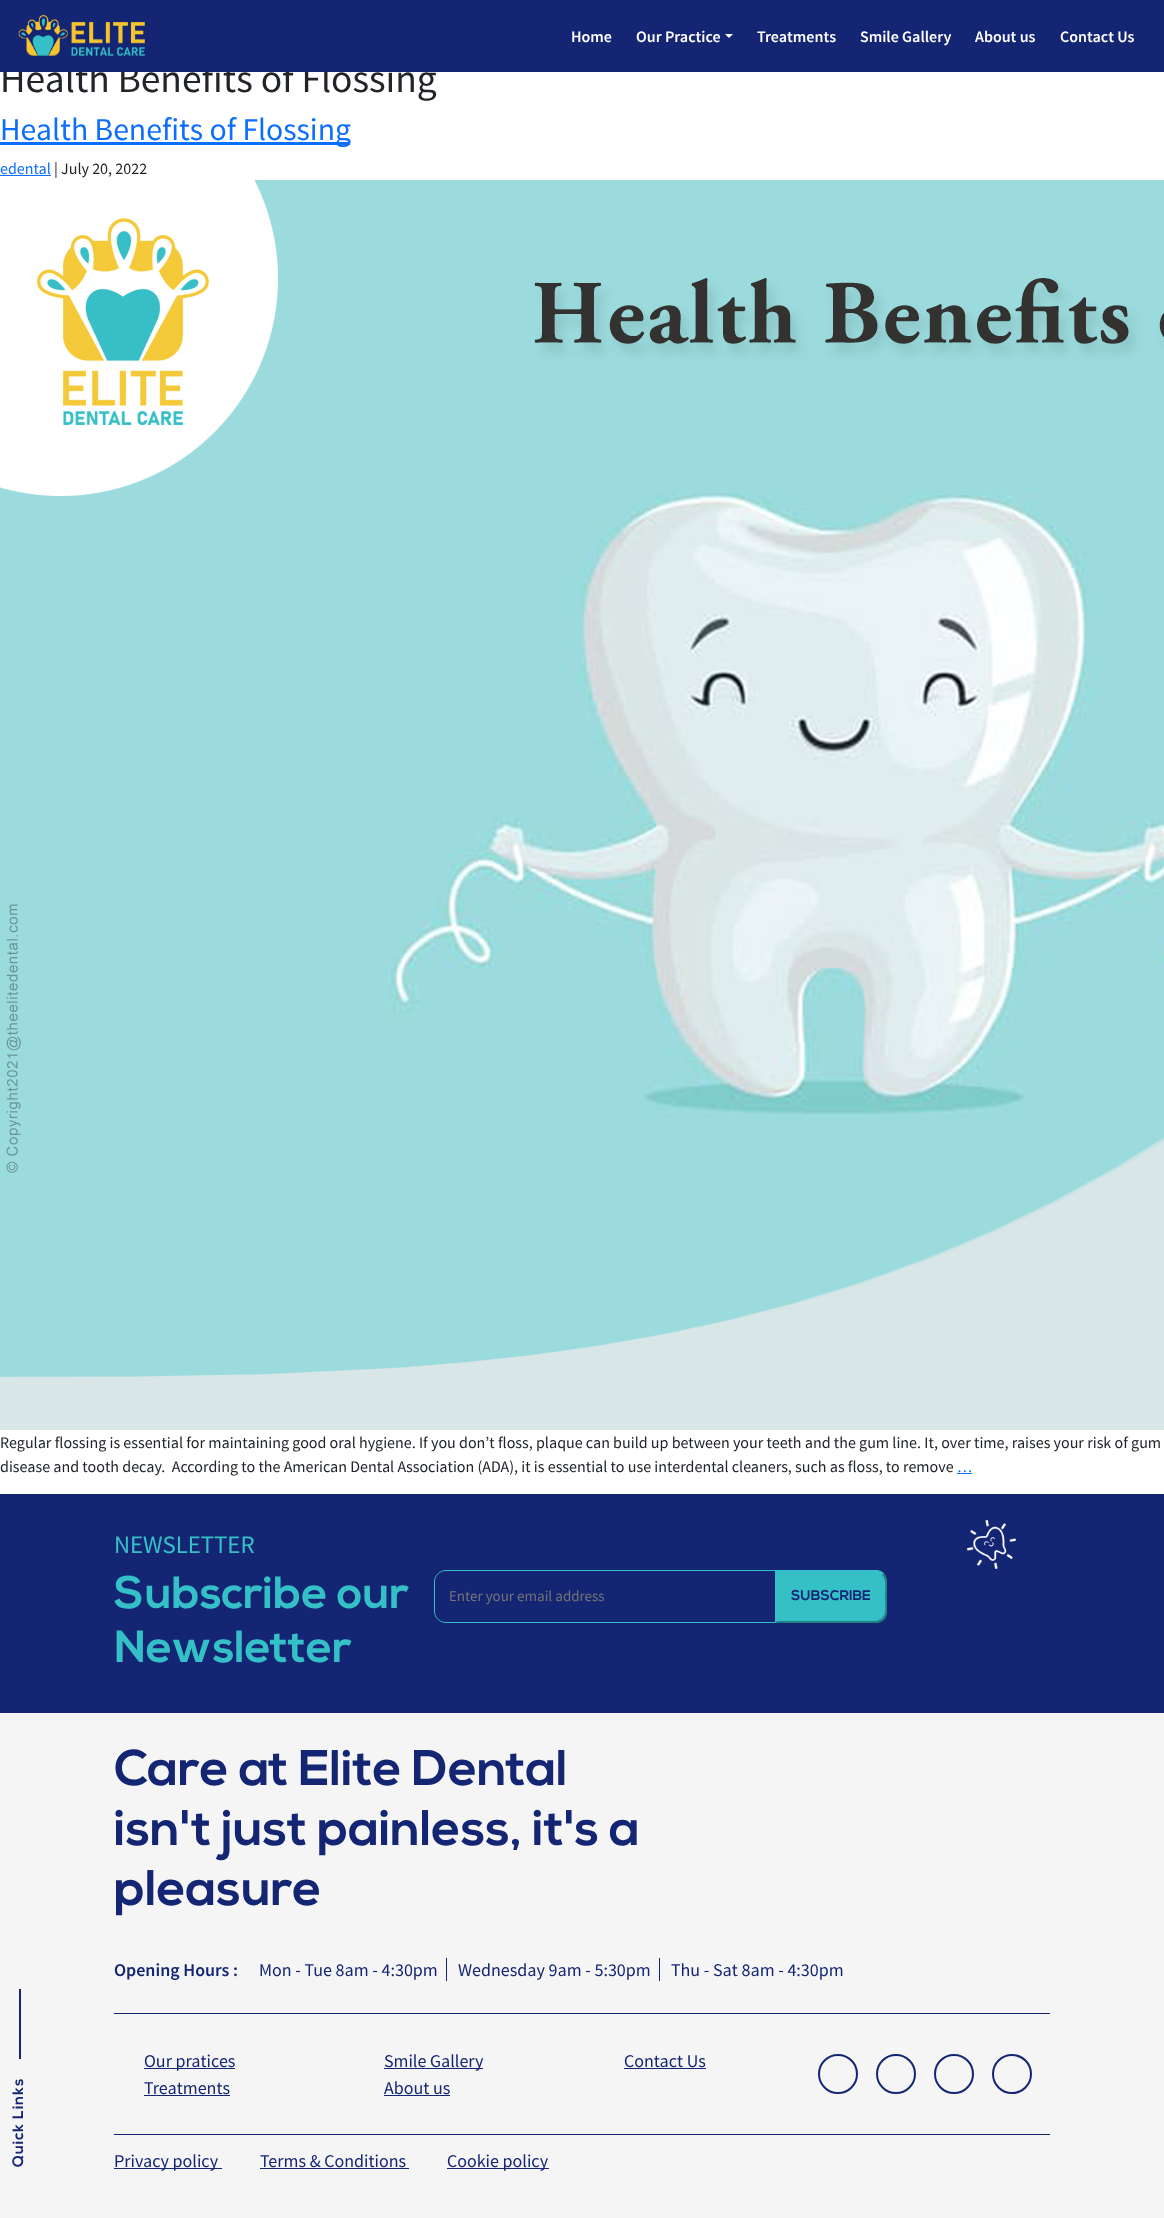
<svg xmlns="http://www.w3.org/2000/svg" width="1164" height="2218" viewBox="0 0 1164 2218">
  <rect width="100%" height="100%" fill="rgb(255,255,255)"/>
  <text x="0" y="92" font-family="Source Sans Pro" font-size="39.5" fill="rgb(33,37,41)">Health Benefits of Flossing</text>
  <rect x="0" y="0" width="1164" height="72" fill="rgb(19,37,115)"/>
  <image x="18" y="15" width="127" height="41" href="pic1.png"/>
  <g font-family="Source Sans Pro" font-size="16" font-weight="600" fill="rgb(255,255,255)">
    <text x="571" y="42">Home</text>
    <text x="636" y="42">Our Practice</text>
  </g>
  <path d="M725 34H733L729 38Z" fill="rgb(255,255,255)"/>
  <g font-family="Source Sans Pro" font-size="16" font-weight="600" fill="rgb(255,255,255)">
    <text x="757" y="42">Treatments</text>
    <text x="860" y="42">Smile Gallery</text>
    <text x="975" y="42">About us</text>
    <text x="1060" y="42">Contact Us</text>
  </g>
  <rect x="0" y="142" width="350" height="3" fill="rgb(13,110,253)"/>
  <text x="0" y="140" font-family="Source Sans Pro" font-size="31.75" fill="rgb(13,110,253)">Health Benefits of Flossing</text>
  <text x="0" y="174" font-family="Source Sans Pro" font-size="16" fill="rgb(13,110,253)">edental</text>
  <rect x="0" y="175" width="51" height="1" fill="rgb(13,110,253)"/>
  <text x="54" y="174" font-family="Source Sans Pro" font-size="16" fill="rgb(33,37,41)">| July 20, 2022</text>
  <image x="0" y="180" width="1164" height="1250" href="pic2.png"/>
  <g font-family="Source Sans Pro" font-size="16" fill="rgb(33,37,41)">
    <text xml:space="preserve"><tspan x="0" y="1448">Regular flossing is essential for maintaining good oral hygiene. If you don’t floss, plaque can build up between your teeth and the gum line. It, over time, raises your risk of gum</tspan><tspan x="0" y="1472">disease and tooth decay.  According to the American Dental Association (ADA), it is essential to use interdental cleaners, such as floss, to remove</tspan></text>
  </g>
  <text x="957" y="1472" font-family="Source Sans Pro" font-size="16" fill="rgb(13,110,253)">…</text>
  <rect x="957" y="1473" width="15" height="1" fill="rgb(13,110,253)"/>
  <rect x="0" y="1494" width="1164" height="219" fill="rgb(19,37,115)"/>
  <text x="114" y="1553" font-family="Source Sans Pro" font-size="25" fill="rgb(52,192,198)">NEWSLETTER</text>
  <g font-family="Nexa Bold" font-size="45" font-weight="bold" fill="rgb(52,192,198)">
    <text>
      <tspan x="114" y="1608">Subscribe our</tspan>
      <tspan x="114" y="1662">Newsletter</tspan>
    </text>
  </g>
  <path d="M446 1570.5H775.5V1622.5H446C439.5 1622.5 434.5 1617.5 434.5 1611V1582C434.5 1575.5 439.5 1570.5 446 1570.5Z" fill="none" stroke="rgb(52,192,198)"/>
  <text x="449" y="1601" font-family="Source Sans Pro" font-size="15" fill="rgb(117,117,117)">Enter your email address</text>
  <path d="M775 1570H875C881.5 1570 887 1575.5 887 1582V1611C887 1617.5 881.5 1623 875 1623H775Z" fill="rgb(52,192,198)"/>
  <path d="M775 1570L777 1572H875C878 1572 880 1573 882 1575L884 1573C882 1571 878 1570 875 1570Z" fill="rgb(52,192,198)"/>
  <path d="M887 1611V1582C887 1578 886 1576 884 1573L882 1575C887 1579 885 1591 885 1596C885 1602 887 1614 882 1618L884 1620C886 1618 887 1614 887 1611Z" fill="rgb(35,128,132)"/>
  <path d="M875 1623C878 1623 882 1622 884 1620L882 1618C880 1620 878 1621 875 1621H777L775 1623Z" fill="rgb(35,128,132)"/>
  <path d="M775 1570V1623L777 1621V1572Z" fill="rgb(52,192,198)"/>
  <text x="791" y="1600" font-family="Nexa Bold" font-size="14" font-weight="bold" fill="rgb(19,37,115)">SUBSCRIBE</text>
  <image x="967" y="1520" width="49" height="49" href="pic3.png"/>
  <rect x="0" y="1713" width="1164" height="505" fill="rgb(245,245,245)"/>
  <g font-family="Nexa Bold" font-size="50" font-weight="bold" fill="rgb(19,37,115)">
    <text>
      <tspan x="114" y="1785">Care at Elite Dental</tspan>
      <tspan x="114" y="1845">isn't just painless, it's a</tspan>
      <tspan x="114" y="1905">pleasure</tspan>
    </text>
  </g>
  <text x="114" y="1976" font-family="Source Sans Pro" font-size="18" font-weight="600" fill="rgb(19,37,115)">Opening Hours :</text>
  <text x="259" y="1976" font-family="Source Sans Pro" font-size="18" fill="rgb(19,37,115)">Mon - Tue 8am - 4:30pm</text>
  <rect x="446" y="1958" width="1" height="23" fill="rgb(19,37,115)"/>
  <text x="458" y="1976" font-family="Source Sans Pro" font-size="18" fill="rgb(19,37,115)">Wednesday 9am - 5:30pm</text>
  <rect x="659" y="1958" width="1" height="23" fill="rgb(19,37,115)"/>
  <text x="671" y="1976" font-family="Source Sans Pro" font-size="18" fill="rgb(19,37,115)">Thu - Sat 8am - 4:30pm</text>
  <rect x="19" y="1989" width="2" height="70" fill="rgb(19,37,115)"/>
  <text x="23" y="2167" transform="rotate(-90 23 2167)" font-family="Nexa Bold" font-size="15" font-weight="bold" letter-spacing="1" fill="rgb(19,37,115)">Quick Links</text>
  <rect x="114" y="2013" width="936" height="1" fill="rgb(19,37,115)"/>
  <rect x="114" y="2134" width="936" height="1" fill="rgb(19,37,115)"/>
  <rect x="144" y="2068" width="91" height="1" fill="rgb(19,37,115)"/>
  <text x="144" y="2067" font-family="Source Sans Pro" font-size="18" fill="rgb(19,37,115)">Our pratices</text>
  <rect x="384" y="2068" width="99" height="1" fill="rgb(19,37,115)"/>
  <g font-family="Source Sans Pro" font-size="18" fill="rgb(19,37,115)">
    <text x="384" y="2067">Smile Gallery</text>
    <text x="624" y="2067">Contact Us</text>
  </g>
  <rect x="624" y="2068" width="82" height="1" fill="rgb(19,37,115)"/>
  <text x="144" y="2094" font-family="Source Sans Pro" font-size="18" fill="rgb(19,37,115)">Treatments</text>
  <rect x="144" y="2095" width="86" height="1" fill="rgb(19,37,115)"/>
  <text x="384" y="2094" font-family="Source Sans Pro" font-size="18" fill="rgb(19,37,115)">About us</text>
  <rect x="384" y="2095" width="66" height="1" fill="rgb(19,37,115)"/>
  <circle cx="838" cy="2074" r="19" fill="none" stroke="rgb(19,37,115)" stroke-width="2"/>
  <circle cx="896" cy="2074" r="19" fill="none" stroke="rgb(19,37,115)" stroke-width="2"/>
  <circle cx="954" cy="2074" r="19" fill="none" stroke="rgb(19,37,115)" stroke-width="2"/>
  <circle cx="1012" cy="2074" r="19" fill="none" stroke="rgb(19,37,115)" stroke-width="2"/>
  <rect x="114" y="2168" width="108" height="1" fill="rgb(19,37,115)"/>
  <g font-family="Source Sans Pro" font-size="18" fill="rgb(19,37,115)">
    <text x="114" y="2167">Privacy policy</text>
    <text x="260" y="2167">Terms &amp; Conditions</text>
  </g>
  <rect x="260" y="2168" width="149" height="1" fill="rgb(19,37,115)"/>
  <rect x="447" y="2168" width="102" height="1" fill="rgb(19,37,115)"/>
  <text x="447" y="2167" font-family="Source Sans Pro" font-size="18" fill="rgb(19,37,115)">Cookie policy</text>
</svg>
